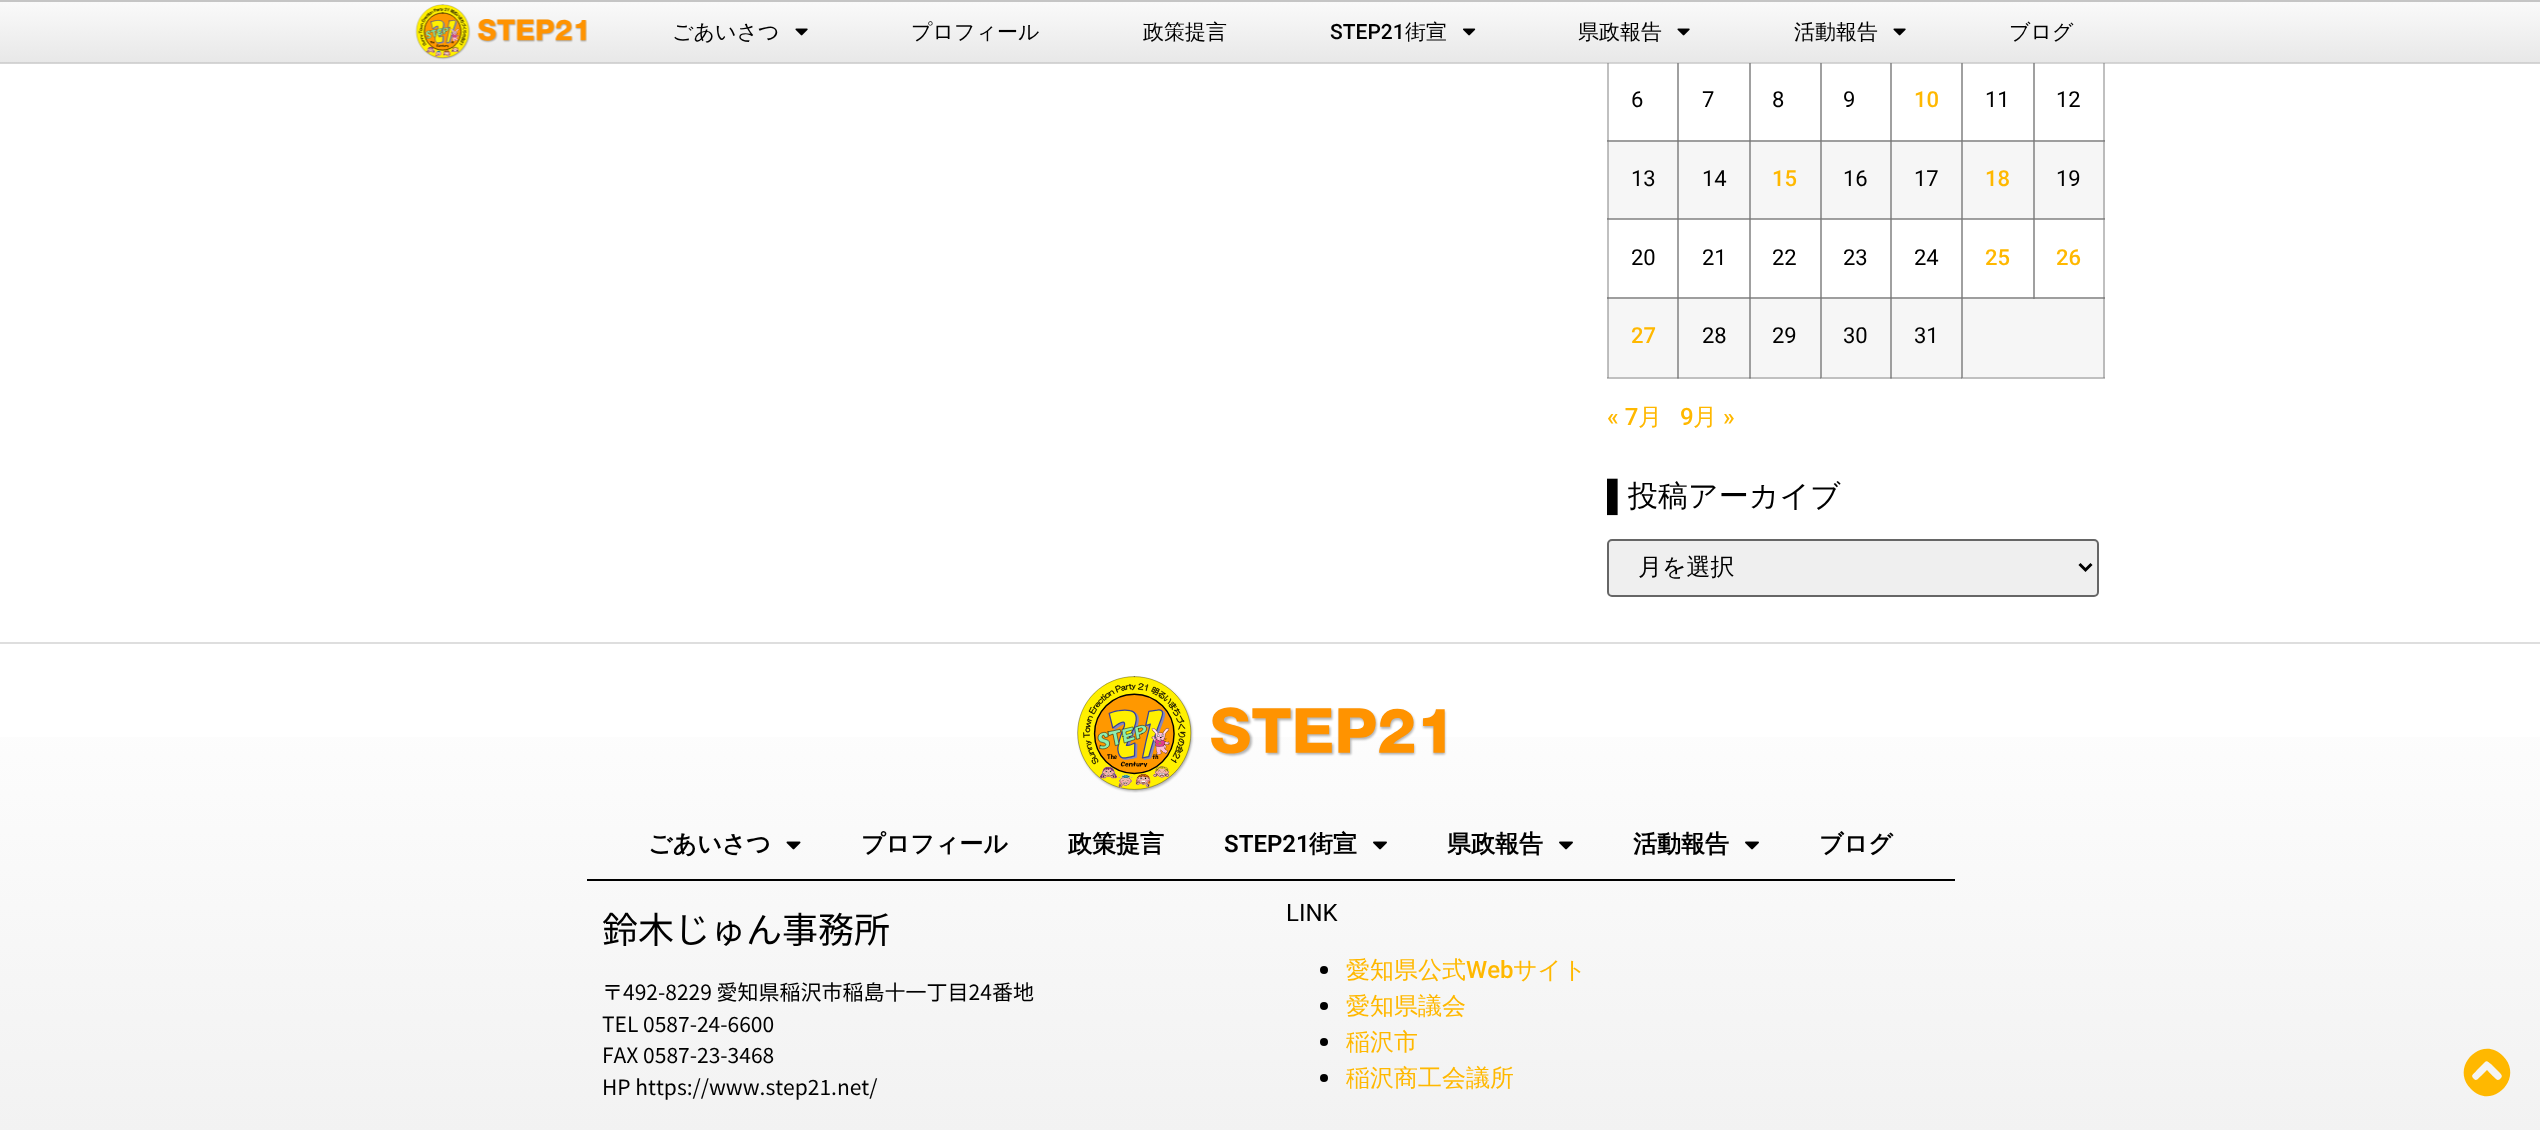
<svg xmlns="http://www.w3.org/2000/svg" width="2540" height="1130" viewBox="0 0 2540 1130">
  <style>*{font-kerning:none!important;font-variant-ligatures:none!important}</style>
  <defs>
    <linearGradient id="g1" gradientUnits="userSpaceOnUse" x1="1271" y1="1.5" x2="1271" y2="62"><stop offset="0" stop-color="rgb(250,250,250)"/><stop offset="1" stop-color="rgb(232,232,232)"/></linearGradient>
    <linearGradient id="g2" gradientUnits="userSpaceOnUse" x1="1271" y1="61" x2="1271" y2="122"><stop offset="0" stop-color="rgb(210,210,210)"/><stop offset="1" stop-color="rgb(198,198,198)"/></linearGradient>
    <linearGradient id="g3" gradientUnits="userSpaceOnUse" x1="1271" y1="643" x2="1271" y2="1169"><stop offset="0" stop-color="rgb(255,255,255)"/><stop offset="1" stop-color="rgb(241,241,241)"/></linearGradient>
  </defs>
  <rect width="100%" height="100%" fill="rgb(255,255,255)"/>
  <rect x="0" y="63" width="2540" height="1" fill="rgb(214,214,214)"/>
  <rect x="1607" y="60" width="2" height="81" fill="rgb(192,192,192)"/>
  <rect x="1607" y="63" width="2" height="1" fill="rgb(170,170,170)"/>
  <rect x="1677" y="60" width="2" height="81" fill="rgb(160,160,160)"/>
  <rect x="1677" y="63" width="2" height="1" fill="rgb(148,148,148)"/>
  <rect x="1749" y="60" width="2" height="81" fill="rgb(160,160,160)"/>
  <rect x="1749" y="63" width="2" height="1" fill="rgb(148,148,148)"/>
  <rect x="1820" y="60" width="2" height="81" fill="rgb(160,160,160)"/>
  <rect x="1820" y="63" width="2" height="1" fill="rgb(148,148,148)"/>
  <rect x="1890" y="60" width="2" height="81" fill="rgb(160,160,160)"/>
  <rect x="1890" y="63" width="2" height="1" fill="rgb(148,148,148)"/>
  <rect x="1961" y="60" width="2" height="81" fill="rgb(160,160,160)"/>
  <rect x="1961" y="63" width="2" height="1" fill="rgb(148,148,148)"/>
  <rect x="2033" y="60" width="2" height="81" fill="rgb(160,160,160)"/>
  <rect x="2033" y="63" width="2" height="1" fill="rgb(148,148,148)"/>
  <rect x="2103" y="60" width="2" height="81" fill="rgb(192,192,192)"/>
  <rect x="2103" y="63" width="2" height="1" fill="rgb(170,170,170)"/>
  <rect x="1607" y="140" width="1" height="79" fill="rgb(192,192,192)"/>
  <rect x="1607" y="141" width="2" height="1" fill="rgb(144,144,144)"/>
  <rect x="1607" y="140" width="2" height="1" fill="rgb(136,136,136)"/>
  <rect x="1607" y="218" width="2" height="81" fill="rgb(192,192,192)"/>
  <rect x="1607" y="219" width="72" height="1" fill="rgb(160,160,160)"/>
  <rect x="1607" y="219" width="2" height="1" fill="rgb(144,144,144)"/>
  <rect x="1607" y="218" width="2" height="1" fill="rgb(136,136,136)"/>
  <rect x="1677" y="218" width="2" height="81" fill="rgb(160,160,160)"/>
  <rect x="1677" y="219" width="74" height="1" fill="rgb(160,160,160)"/>
  <rect x="1677" y="219" width="2" height="1" fill="rgb(130,130,130)"/>
  <rect x="1749" y="218" width="2" height="81" fill="rgb(160,160,160)"/>
  <rect x="1749" y="219" width="72" height="1" fill="rgb(160,160,160)"/>
  <rect x="1749" y="219" width="2" height="1" fill="rgb(130,130,130)"/>
  <rect x="1820" y="218" width="2" height="81" fill="rgb(160,160,160)"/>
  <rect x="1820" y="219" width="72" height="1" fill="rgb(160,160,160)"/>
  <rect x="1820" y="219" width="2" height="1" fill="rgb(136,136,136)"/>
  <rect x="1820" y="218" width="1" height="2" fill="rgb(130,130,130)"/>
  <rect x="1890" y="218" width="2" height="81" fill="rgb(160,160,160)"/>
  <rect x="1890" y="219" width="72" height="1" fill="rgb(160,160,160)"/>
  <rect x="1890" y="219" width="2" height="1" fill="rgb(130,130,130)"/>
  <rect x="1961" y="218" width="2" height="81" fill="rgb(160,160,160)"/>
  <rect x="1961" y="219" width="73" height="1" fill="rgb(160,160,160)"/>
  <rect x="1961" y="219" width="2" height="1" fill="rgb(136,136,136)"/>
  <rect x="1961" y="218" width="1" height="2" fill="rgb(130,130,130)"/>
  <rect x="2033" y="218" width="2" height="81" fill="rgb(160,160,160)"/>
  <rect x="2103" y="218" width="2" height="81" fill="rgb(192,192,192)"/>
  <rect x="2033" y="219" width="72" height="1" fill="rgb(160,160,160)"/>
  <rect x="2033" y="219" width="2" height="1" fill="rgb(136,136,136)"/>
  <rect x="2033" y="218" width="1" height="2" fill="rgb(130,130,130)"/>
  <rect x="2103" y="219" width="2" height="1" fill="rgb(144,144,144)"/>
  <rect x="1607" y="297" width="1" height="81" fill="rgb(192,192,192)"/>
  <rect x="1607" y="377" width="498" height="2" fill="rgb(192,192,192)"/>
  <rect x="1607" y="377" width="2" height="1" fill="rgb(160,160,160)"/>
  <rect x="1607" y="297" width="2" height="2" fill="rgb(136,136,136)"/>
  <rect x="1677" y="378" width="2" height="1" fill="rgb(160,160,160)"/>
  <rect x="1677" y="377" width="2" height="1" fill="rgb(136,136,136)"/>
  <rect x="1749" y="378" width="2" height="1" fill="rgb(160,160,160)"/>
  <rect x="1749" y="377" width="2" height="1" fill="rgb(136,136,136)"/>
  <rect x="1820" y="377" width="1" height="2" fill="rgb(160,160,160)"/>
  <rect x="1820" y="377" width="2" height="1" fill="rgb(144,144,144)"/>
  <rect x="1820" y="377" width="1" height="1" fill="rgb(136,136,136)"/>
  <rect x="1890" y="378" width="2" height="1" fill="rgb(160,160,160)"/>
  <rect x="1890" y="377" width="2" height="1" fill="rgb(136,136,136)"/>
  <rect x="1961" y="377" width="1" height="2" fill="rgb(160,160,160)"/>
  <rect x="1961" y="377" width="2" height="1" fill="rgb(144,144,144)"/>
  <rect x="1961" y="377" width="1" height="1" fill="rgb(136,136,136)"/>
  <rect x="2103" y="377" width="2" height="1" fill="rgb(160,160,160)"/>
  <rect x="0" y="2" width="2540" height="60" fill="url(#g1)"/>
  <rect x="0" y="62" width="2540" height="1" fill="url(#g2)"/>
  <rect x="0" y="0" width="2540" height="2" fill="rgb(197,197,197)"/>
  <image x="415" y="4" width="172" height="56" href="pic1.png"/>
  <text x="672" y="39" font-family="WenQuanYi Zen Hei" font-size="21" font-weight="500" fill="rgb(0,0,0)">ごあいさつ</text>
  <image x="795" y="28" width="13" height="8" href="pic2.png"/>
  <g font-family="WenQuanYi Zen Hei" font-size="21" font-weight="500" fill="rgb(0,0,0)">
    <text x="911" y="39">プロフィール</text>
    <text x="1143" y="39">政策提言</text>
  </g>
  <text x="1330" y="39" font-family="Roboto" font-size="21" font-weight="500" fill="rgb(0,0,0)">STEP21</text>
  <text x="1405" y="39" font-family="WenQuanYi Zen Hei" font-size="21" font-weight="500" fill="rgb(0,0,0)">街宣</text>
  <image x="1463" y="28" width="13" height="8" href="pic3.png"/>
  <text x="1578" y="39" font-family="WenQuanYi Zen Hei" font-size="21" font-weight="500" fill="rgb(0,0,0)">県政報告</text>
  <image x="1677" y="28" width="13" height="8" href="pic2.png"/>
  <text x="1794" y="39" font-family="WenQuanYi Zen Hei" font-size="21" font-weight="500" fill="rgb(0,0,0)">活動報告</text>
  <image x="1893" y="28" width="13" height="8" href="pic2.png"/>
  <text x="2009" y="39" font-family="WenQuanYi Zen Hei" font-size="21" font-weight="500" fill="rgb(0,0,0)">ブログ</text>
  <g font-family="Roboto" font-size="22" fill="rgb(0,0,0)">
    <text x="1631" y="107">6</text>
    <text x="1702" y="107">7</text>
    <text x="1772" y="107">8</text>
    <text x="1843" y="107">9</text>
  </g>
  <text x="1914" y="107" font-family="Roboto" font-size="22" font-weight="500" fill="rgb(255,184,0)">10</text>
  <g font-family="Roboto" font-size="22" fill="rgb(0,0,0)">
    <text x="1985" y="107">11</text>
    <text x="2056" y="107">12</text>
  </g>
  <rect x="1609" y="142" width="68" height="76" fill="rgb(246,246,246)"/>
  <rect x="1608" y="140" width="1" height="79" fill="rgb(187,187,187)"/>
  <rect x="1608" y="140" width="141" height="2" fill="rgb(158,158,158)"/>
  <rect x="1608" y="140" width="1" height="2" fill="rgb(143,143,143)"/>
  <rect x="1608" y="140" width="1" height="1" fill="rgb(136,136,136)"/>
  <rect x="1677" y="140" width="2" height="79" fill="rgb(158,158,158)"/>
  <rect x="1677" y="141" width="2" height="1" fill="rgb(130,130,130)"/>
  <rect x="1677" y="140" width="2" height="1" fill="rgb(129,129,129)"/>
  <rect x="1608" y="218" width="141" height="1" fill="rgb(158,158,158)"/>
  <rect x="1608" y="218" width="1" height="1" fill="rgb(136,136,136)"/>
  <rect x="1677" y="218" width="2" height="1" fill="rgb(129,129,129)"/>
  <text x="1631" y="186" font-family="Roboto" font-size="22" fill="rgb(0,0,0)">13</text>
  <rect x="1679" y="142" width="70" height="76" fill="rgb(246,246,246)"/>
  <text x="1702" y="186" font-family="Roboto" font-size="22" fill="rgb(0,0,0)">14</text>
  <rect x="1751" y="142" width="69" height="76" fill="rgb(246,246,246)"/>
  <rect x="1749" y="140" width="2" height="79" fill="rgb(158,158,158)"/>
  <rect x="1749" y="140" width="71" height="2" fill="rgb(158,158,158)"/>
  <rect x="1749" y="141" width="2" height="1" fill="rgb(130,130,130)"/>
  <rect x="1749" y="140" width="2" height="1" fill="rgb(129,129,129)"/>
  <rect x="1749" y="218" width="71" height="1" fill="rgb(158,158,158)"/>
  <rect x="1749" y="218" width="2" height="1" fill="rgb(129,129,129)"/>
  <text x="1772" y="186" font-family="Roboto" font-size="22" font-weight="500" fill="rgb(255,184,0)">15</text>
  <rect x="1822" y="142" width="68" height="76" fill="rgb(246,246,246)"/>
  <rect x="1820" y="140" width="2" height="79" fill="rgb(158,158,158)"/>
  <rect x="1820" y="140" width="142" height="2" fill="rgb(158,158,158)"/>
  <rect x="1820" y="141" width="2" height="1" fill="rgb(136,136,136)"/>
  <rect x="1820" y="140" width="2" height="1" fill="rgb(130,130,130)"/>
  <rect x="1820" y="140" width="1" height="2" fill="rgb(130,130,130)"/>
  <rect x="1890" y="140" width="2" height="79" fill="rgb(158,158,158)"/>
  <rect x="1890" y="141" width="2" height="1" fill="rgb(130,130,130)"/>
  <rect x="1890" y="140" width="2" height="1" fill="rgb(129,129,129)"/>
  <rect x="1820" y="218" width="72" height="1" fill="rgb(158,158,158)"/>
  <rect x="1820" y="218" width="2" height="1" fill="rgb(130,130,130)"/>
  <rect x="1890" y="218" width="2" height="1" fill="rgb(129,129,129)"/>
  <text x="1843" y="186" font-family="Roboto" font-size="22" fill="rgb(0,0,0)">16</text>
  <rect x="1892" y="142" width="69" height="76" fill="rgb(246,246,246)"/>
  <rect x="1961" y="140" width="2" height="79" fill="rgb(158,158,158)"/>
  <rect x="1961" y="140" width="1" height="2" fill="rgb(130,130,130)"/>
  <rect x="1892" y="218" width="141" height="1" fill="rgb(158,158,158)"/>
  <rect x="1961" y="218" width="1" height="1" fill="rgb(129,129,129)"/>
  <text x="1914" y="186" font-family="Roboto" font-size="22" fill="rgb(0,0,0)">17</text>
  <rect x="1963" y="142" width="70" height="76" fill="rgb(246,246,246)"/>
  <rect x="1962" y="140" width="71" height="2" fill="rgb(158,158,158)"/>
  <rect x="1962" y="140" width="1" height="2" fill="rgb(136,136,136)"/>
  <rect x="1962" y="140" width="1" height="1" fill="rgb(130,130,130)"/>
  <rect x="1962" y="218" width="1" height="1" fill="rgb(130,130,130)"/>
  <text x="1985" y="186" font-family="Roboto" font-size="22" font-weight="500" fill="rgb(255,184,0)">18</text>
  <rect x="2035" y="142" width="68" height="76" fill="rgb(246,246,246)"/>
  <rect x="2033" y="140" width="2" height="79" fill="rgb(158,158,158)"/>
  <rect x="2103" y="140" width="2" height="79" fill="rgb(187,187,187)"/>
  <rect x="2033" y="218" width="72" height="1" fill="rgb(158,158,158)"/>
  <rect x="2033" y="218" width="2" height="1" fill="rgb(130,130,130)"/>
  <rect x="2103" y="218" width="2" height="1" fill="rgb(136,136,136)"/>
  <rect x="2033" y="140" width="72" height="2" fill="rgb(158,158,158)"/>
  <rect x="2033" y="141" width="2" height="1" fill="rgb(136,136,136)"/>
  <rect x="2033" y="140" width="2" height="1" fill="rgb(130,130,130)"/>
  <rect x="2033" y="140" width="1" height="2" fill="rgb(130,130,130)"/>
  <rect x="2103" y="141" width="2" height="1" fill="rgb(143,143,143)"/>
  <rect x="2103" y="140" width="2" height="1" fill="rgb(136,136,136)"/>
  <g font-family="Roboto" font-size="22" fill="rgb(0,0,0)">
    <text x="2056" y="186">19</text>
    <text x="1631" y="265">20</text>
    <text x="1702" y="265">21</text>
    <text x="1772" y="265">22</text>
    <text x="1843" y="265">23</text>
    <text x="1914" y="265">24</text>
  </g>
  <g font-family="Roboto" font-size="22" font-weight="500" fill="rgb(255,184,0)">
    <text x="1985" y="265">25</text>
    <text x="2056" y="265">26</text>
  </g>
  <rect x="1609" y="299" width="68" height="78" fill="rgb(246,246,246)"/>
  <rect x="1608" y="297" width="1" height="80" fill="rgb(187,187,187)"/>
  <rect x="1608" y="297" width="141" height="2" fill="rgb(158,158,158)"/>
  <rect x="1608" y="297" width="1" height="2" fill="rgb(136,136,136)"/>
  <rect x="1677" y="297" width="2" height="80" fill="rgb(158,158,158)"/>
  <rect x="1677" y="297" width="2" height="2" fill="rgb(129,129,129)"/>
  <text x="1631" y="343" font-family="Roboto" font-size="22" font-weight="500" fill="rgb(255,184,0)">27</text>
  <rect x="1679" y="299" width="70" height="78" fill="rgb(246,246,246)"/>
  <text x="1702" y="343" font-family="Roboto" font-size="22" fill="rgb(0,0,0)">28</text>
  <rect x="1751" y="299" width="69" height="78" fill="rgb(246,246,246)"/>
  <rect x="1749" y="297" width="2" height="80" fill="rgb(158,158,158)"/>
  <rect x="1749" y="297" width="71" height="2" fill="rgb(158,158,158)"/>
  <rect x="1749" y="297" width="2" height="2" fill="rgb(129,129,129)"/>
  <text x="1772" y="343" font-family="Roboto" font-size="22" fill="rgb(0,0,0)">29</text>
  <rect x="1822" y="299" width="68" height="78" fill="rgb(246,246,246)"/>
  <rect x="1820" y="297" width="2" height="80" fill="rgb(158,158,158)"/>
  <rect x="1820" y="297" width="142" height="2" fill="rgb(158,158,158)"/>
  <rect x="1820" y="297" width="2" height="2" fill="rgb(130,130,130)"/>
  <rect x="1890" y="297" width="2" height="80" fill="rgb(158,158,158)"/>
  <rect x="1890" y="297" width="2" height="2" fill="rgb(129,129,129)"/>
  <text x="1843" y="343" font-family="Roboto" font-size="22" fill="rgb(0,0,0)">30</text>
  <rect x="1892" y="299" width="69" height="78" fill="rgb(246,246,246)"/>
  <rect x="1961" y="297" width="2" height="80" fill="rgb(158,158,158)"/>
  <text x="1914" y="343" font-family="Roboto" font-size="22" fill="rgb(0,0,0)">31</text>
  <rect x="1963" y="299" width="140" height="78" fill="rgb(246,246,246)"/>
  <rect x="2103" y="297" width="2" height="80" fill="rgb(187,187,187)"/>
  <rect x="1961" y="297" width="144" height="2" fill="rgb(158,158,158)"/>
  <rect x="2033" y="297" width="2" height="2" fill="rgb(136,136,136)"/>
  <rect x="2033" y="297" width="1" height="2" fill="rgb(132,132,132)"/>
  <rect x="1961" y="297" width="2" height="2" fill="rgb(130,130,130)"/>
  <rect x="2103" y="297" width="2" height="2" fill="rgb(136,136,136)"/>
  <text x="1607" y="425" font-family="Roboto" font-size="24" font-weight="500" fill="rgb(255,184,0)">« 7</text>
  <text x="1638" y="425" font-family="WenQuanYi Zen Hei" font-size="24" font-weight="500" fill="rgb(255,184,0)">月</text>
  <text x="1680" y="425" font-family="Roboto" font-size="24" font-weight="500" fill="rgb(255,184,0)">9</text>
  <text x="1693" y="425" font-family="WenQuanYi Zen Hei" font-size="24" font-weight="500" fill="rgb(255,184,0)">月</text>
  <text x="1723" y="425" font-family="Roboto" font-size="24" font-weight="500" fill="rgb(255,184,0)">»</text>
  <text x="1607" y="506" font-family="Liberation Sans" font-size="30" fill="rgb(0,0,0)">▌</text>
  <text x="1628" y="506" font-family="WenQuanYi Zen Hei" font-size="30" font-weight="500" fill="rgb(0,0,0)">投稿アーカイブ</text>
  <rect x="1608" y="540" width="490" height="56" rx="4" fill="rgb(239,239,239)" stroke="rgb(102,102,102)" stroke-width="2"/>
  <path d="M2079.5 564L2085.5 570L2091.5 564" fill="none" stroke="rgb(0,0,0)" stroke-width="3"/>
  <text x="1638" y="575" font-family="WenQuanYi Zen Hei" font-size="24" font-weight="500" fill="rgb(0,0,0)">月を選択</text>
  <rect x="0" y="737" width="2540" height="393" fill="url(#g3)"/>
  <rect x="0" y="642" width="2540" height="2" fill="rgb(222,222,222)"/>
  <image x="1077" y="676" width="370" height="117" href="pic4.png"/>
  <text x="648" y="852" font-family="WenQuanYi Zen Hei" font-size="24" font-weight="bold" fill="rgb(0,0,0)">ごあいさつ</text>
  <image x="786" y="841" width="15" height="9" href="pic5.png"/>
  <g font-family="WenQuanYi Zen Hei" font-size="24" font-weight="bold" fill="rgb(0,0,0)">
    <text x="861" y="852">プロフィール</text>
    <text x="1068" y="852">政策提言</text>
  </g>
  <text x="1224" y="852" font-family="Roboto" font-size="24" font-weight="600" fill="rgb(0,0,0)">STEP21</text>
  <text x="1309" y="852" font-family="WenQuanYi Zen Hei" font-size="24" font-weight="bold" fill="rgb(0,0,0)">街宣</text>
  <image x="1373" y="841" width="14" height="9" href="pic6.png"/>
  <text x="1447" y="852" font-family="WenQuanYi Zen Hei" font-size="24" font-weight="bold" fill="rgb(0,0,0)">県政報告</text>
  <image x="1559" y="841" width="14" height="9" href="pic6.png"/>
  <text x="1633" y="852" font-family="WenQuanYi Zen Hei" font-size="24" font-weight="bold" fill="rgb(0,0,0)">活動報告</text>
  <image x="1745" y="841" width="14" height="9" href="pic6.png"/>
  <text x="1819" y="852" font-family="WenQuanYi Zen Hei" font-size="24" font-weight="bold" fill="rgb(0,0,0)">ブログ</text>
  <rect x="587" y="879" width="1368" height="2" fill="rgb(0,0,0)"/>
  <text x="602" y="943" font-family="Noto Sans JP" font-size="36" fill="rgb(0,0,0)">鈴木じゅん事務所</text>
  <g font-family="Noto Sans JP" font-size="21" fill="rgb(0,0,0)">
    <text>
      <tspan x="602" y="1000">〒492-8229 愛知県稲沢市稲島十一丁目24番地</tspan>
      <tspan x="602" y="1032">TEL 0587-24-6600</tspan>
      <tspan x="602" y="1063">FAX 0587-23-3468</tspan>
      <tspan x="602" y="1095">HP https://www.step21.net/</tspan>
    </text>
  </g>
  <text x="1286" y="921" font-family="Roboto" font-size="24" fill="rgb(0,0,0)">LINK</text>
  <circle cx="1324" cy="970" r="4" fill="rgb(0,0,0)"/>
  <text x="1346" y="978" font-family="WenQuanYi Zen Hei" font-size="24" font-weight="500" fill="rgb(255,184,0)">愛知県公式</text>
  <text x="1466" y="978" font-family="Roboto" font-size="24" font-weight="500" fill="rgb(255,184,0)">Web</text>
  <text x="1513" y="978" font-family="WenQuanYi Zen Hei" font-size="24" font-weight="500" fill="rgb(255,184,0)">サイト</text>
  <circle cx="1324" cy="1006" r="4" fill="rgb(0,0,0)"/>
  <text x="1346" y="1014" font-family="WenQuanYi Zen Hei" font-size="24" font-weight="500" fill="rgb(255,184,0)">愛知県議会</text>
  <circle cx="1324" cy="1042" r="4" fill="rgb(0,0,0)"/>
  <text x="1346" y="1050" font-family="WenQuanYi Zen Hei" font-size="24" font-weight="500" fill="rgb(255,184,0)">稲沢市</text>
  <circle cx="1324" cy="1078" r="4" fill="rgb(0,0,0)"/>
  <text x="1346" y="1086" font-family="WenQuanYi Zen Hei" font-size="24" font-weight="500" fill="rgb(255,184,0)">稲沢商工会議所</text>
  <path d="M2471 1089C2449 1067 2482 1034 2503 1056C2525 1078 2492 1111 2471 1089ZM2485 1062L2477 1070C2473 1075 2470 1075 2474 1079C2477 1082 2479 1077 2481 1076L2487 1070C2489 1072 2496 1080 2498 1080C2499 1080 2500 1079 2501 1078C2503 1076 2501 1074 2499 1072L2491 1064C2489 1063 2487 1060 2485 1062Z" fill="rgb(255,184,0)"/>
</svg>
